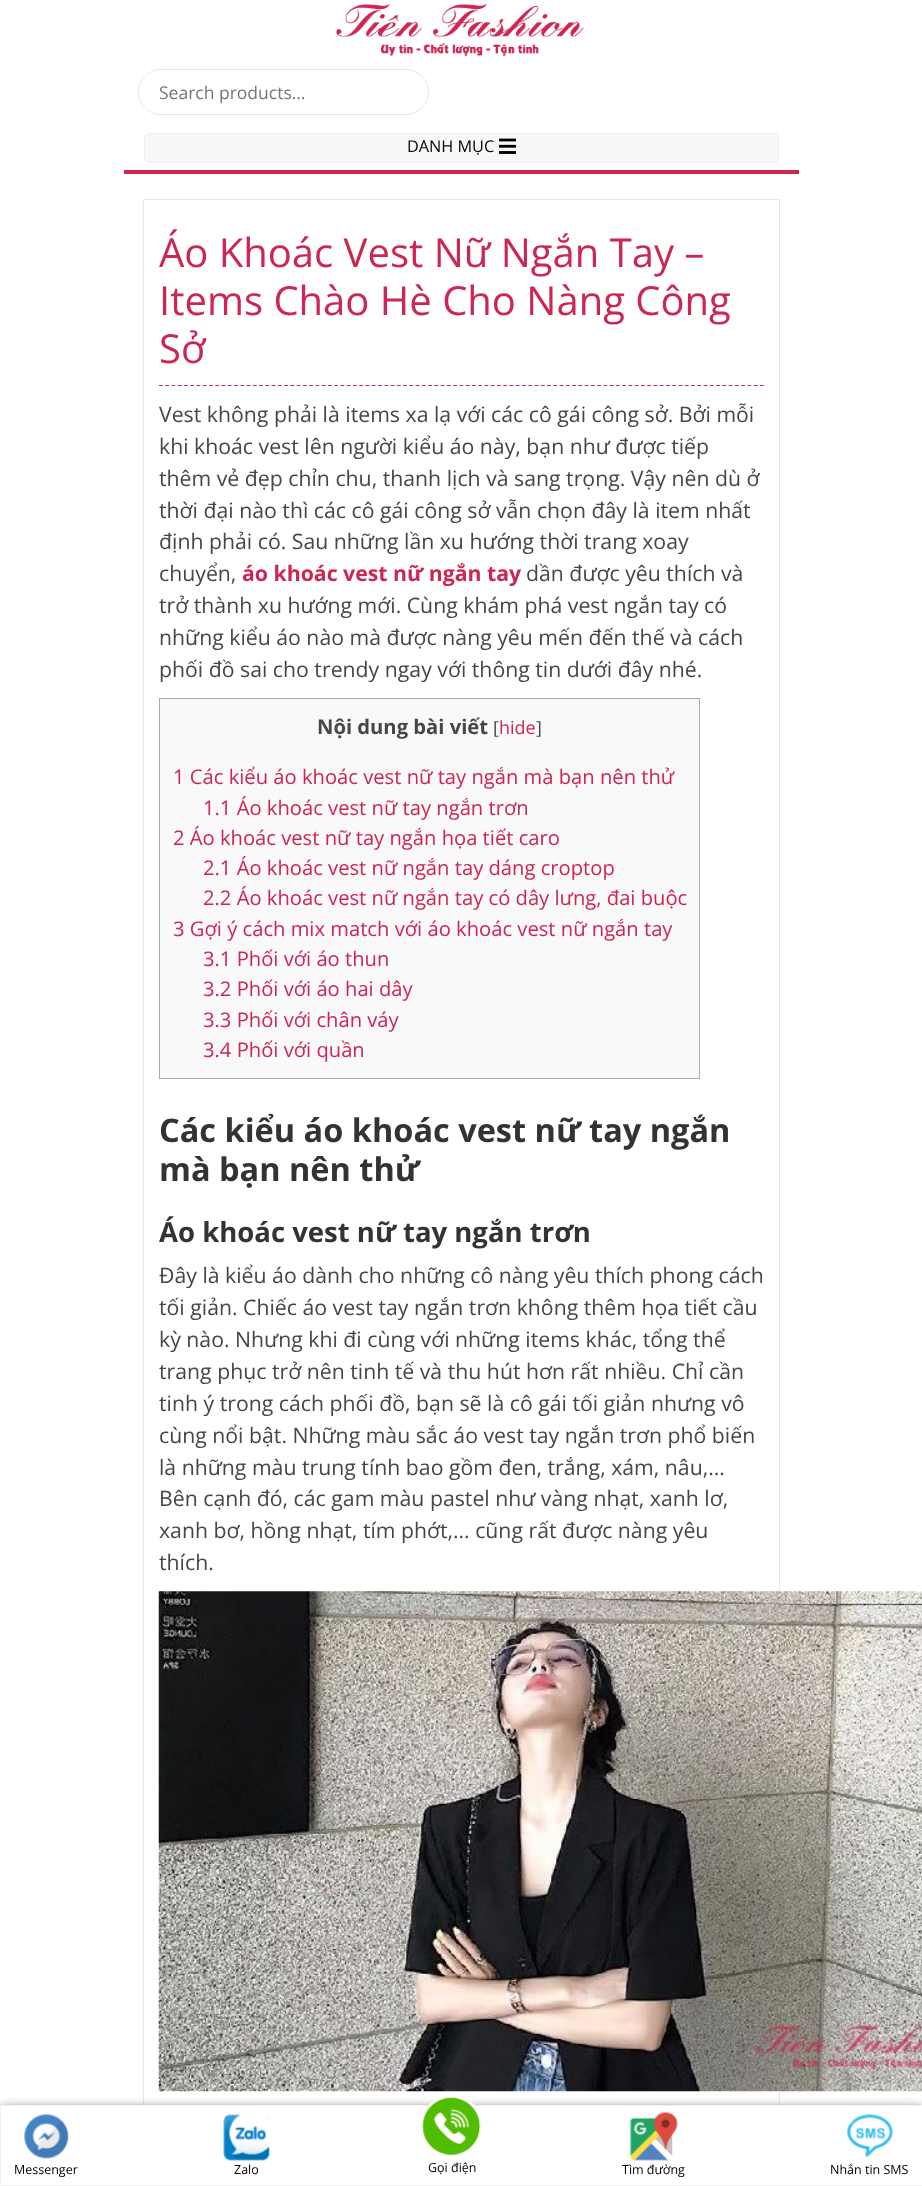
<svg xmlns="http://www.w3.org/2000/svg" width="922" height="2186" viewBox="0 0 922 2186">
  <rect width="100%" height="100%" fill="rgb(255,255,255)"/>
  <rect x="124" y="170" width="675" height="4" fill="rgb(205,38,83)"/>
  <image x="336" y="3" width="248" height="53" href="pic1.png"/>
  <rect x="138.5" y="69.5" width="290" height="45" rx="22.5" fill="none" stroke="rgb(231,232,237)"/>
  <text x="159" y="99" font-family="Open Sans" font-size="17.5" fill="rgb(117,117,117)">Search products…</text>
  <rect x="144.5" y="133.5" width="634" height="29" rx="4.5" fill="rgb(247,247,247)" stroke="rgb(239,239,239)"/>
  <text x="407" y="152" font-family="Open Sans" font-size="16.25" fill="rgb(0,0,0)">DANH MỤC</text>
  <image x="499" y="138" width="17" height="16" href="pic2.png"/>
  <rect x="143.5" y="199.5" width="636" height="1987" fill="none" stroke="rgb(232,232,232)"/>
  <path d="M159 385.5H764" fill="none" stroke="rgb(205,38,83)" stroke-width="1.2" stroke-dasharray="3.75 2.51"/>
  <g font-family="Open Sans" font-size="40" fill="rgb(205,38,83)">
    <text>
      <tspan x="159" y="267">Áo Khoác Vest Nữ Ngắn Tay –</tspan>
      <tspan x="159" y="315">Items Chào Hè Cho Nàng Công</tspan>
      <tspan x="159" y="363">Sở</tspan>
    </text>
  </g>
  <g font-family="Open Sans" font-size="21.25" fill="rgb(70,70,70)">
    <text>
      <tspan x="159" y="422">Vest không phải là items xa lạ với các cô gái công sở. Bởi mỗi</tspan>
      <tspan x="159" y="454">khi khoác vest lên người kiểu áo này, bạn như được tiếp</tspan>
      <tspan x="159" y="486">thêm vẻ đẹp chỉn chu, thanh lịch và sang trọng. Vậy nên dù ở</tspan>
      <tspan x="159" y="518">thời đại nào thì các cô gái công sở vẫn chọn đây là item nhất</tspan>
      <tspan x="159" y="549">định phải có. Sau những lần xu hướng thời trang xoay</tspan>
      <tspan x="159" y="581">chuyển,</tspan>
    </text>
  </g>
  <text x="242" y="581" font-family="Open Sans" font-size="21.25" font-weight="bold" fill="rgb(205,38,83)">áo khoác vest nữ ngắn tay</text>
  <g font-family="Open Sans" font-size="21.25" fill="rgb(70,70,70)">
    <text x="526" y="581">dần được yêu thích và</text>
    <text>
      <tspan x="159" y="613">trở thành xu hướng mới. Cùng khám phá vest ngắn tay có</tspan>
      <tspan x="159" y="645">những kiểu áo nào mà được nàng yêu mến đến thế và cách</tspan>
      <tspan x="159" y="677">phối đồ sai cho trendy ngay với thông tin dưới đây nhé.</tspan>
    </text>
  </g>
  <rect x="159.5" y="698.5" width="540" height="380" fill="rgb(249,249,249)" stroke="rgb(170,170,170)"/>
  <text x="317" y="734" font-family="Open Sans" font-size="20.2" font-weight="bold" fill="rgb(70,70,70)">Nội dung bài viết</text>
  <text x="493" y="734" font-family="Open Sans" font-size="18" fill="rgb(70,70,70)">[</text>
  <text x="499" y="734" font-family="Open Sans" font-size="18" fill="rgb(205,38,83)">hide</text>
  <text x="536" y="734" font-family="Open Sans" font-size="18" fill="rgb(70,70,70)">]</text>
  <g font-family="Open Sans" font-size="20.2" fill="rgb(205,38,83)">
    <text x="173" y="784">1 Các kiểu áo khoác vest nữ tay ngắn mà bạn nên thử</text>
    <text x="203" y="815">1.1 Áo khoác vest nữ tay ngắn trơn</text>
    <text x="173" y="845">2 Áo khoác vest nữ tay ngắn họa tiết caro</text>
    <text>
      <tspan x="203" y="875">2.1 Áo khoác vest nữ ngắn tay dáng croptop</tspan>
      <tspan x="203" y="905">2.2 Áo khoác vest nữ ngắn tay có dây lưng, đai buộc</tspan>
    </text>
    <text x="173" y="936">3 Gợi ý cách mix match với áo khoác vest nữ ngắn tay</text>
    <text>
      <tspan x="203" y="966">3.1 Phối với áo thun</tspan>
      <tspan x="203" y="996">3.2 Phối với áo hai dây</tspan>
      <tspan x="203" y="1027">3.3 Phối với chân váy</tspan>
      <tspan x="203" y="1057">3.4 Phối với quần</tspan>
    </text>
  </g>
  <g font-family="Open Sans" font-size="32.5" font-weight="bold" fill="rgb(51,51,51)">
    <text>
      <tspan x="159" y="1142">Các kiểu áo khoác vest nữ tay ngắn</tspan>
      <tspan x="159" y="1181">mà bạn nên thử</tspan>
    </text>
  </g>
  <text x="159" y="1242" font-family="Open Sans" font-size="27.5" font-weight="bold" fill="rgb(51,51,51)">Áo khoác vest nữ tay ngắn trơn</text>
  <g font-family="Open Sans" font-size="21.25" fill="rgb(70,70,70)">
    <text>
      <tspan x="159" y="1283">Đây là kiểu áo dành cho những cô nàng yêu thích phong cách</tspan>
      <tspan x="159" y="1315">tối giản. Chiếc áo vest tay ngắn trơn không thêm họa tiết cầu</tspan>
      <tspan x="159" y="1347">kỳ nào. Nhưng khi đi cùng với những items khác, tổng thể</tspan>
      <tspan x="159" y="1379">trang phục trở nên tinh tế và thu hút hơn rất nhiều. Chỉ cần</tspan>
      <tspan x="159" y="1411">tinh ý trong cách phối đồ, bạn sẽ là cô gái tối giản nhưng vô</tspan>
      <tspan x="159" y="1443">cùng nổi bật. Những màu sắc áo vest tay ngắn trơn phổ biến</tspan>
      <tspan x="159" y="1475">là những màu trung tính bao gồm đen, trắng, xám, nâu,…</tspan>
      <tspan x="159" y="1506">Bên cạnh đó, các gam màu pastel như vàng nhạt, xanh lơ,</tspan>
      <tspan x="159" y="1538">xanh bơ, hồng nhạt, tím phớt,… cũng rất được nàng yêu</tspan>
      <tspan x="159" y="1570">thích.</tspan>
    </text>
  </g>
  <image x="158" y="1591" width="764" height="501" href="pic3.png"/>
  <rect x="0" y="2110" width="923" height="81" fill="rgb(0,0,0)" filter="blur(6px)"/>
  <rect x="0.5" y="2105.5" width="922" height="80" fill="rgb(255,255,255)" stroke="rgb(242,242,242)"/>
  <image x="24" y="2113" width="45" height="46" href="pic4.png"/>
  <text x="14" y="2174" font-family="Open Sans" font-size="12.5" fill="rgb(0,0,0)">Messenger</text>
  <image x="223" y="2113" width="47" height="48" href="pic5.png"/>
  <text x="234" y="2174" font-family="Open Sans" font-size="12.5" fill="rgb(0,0,0)">Zalo</text>
  <circle cx="451.5" cy="2126.5" r="30" fill="none" stroke="rgb(255,255,255)" stroke-width="3"/>
  <image x="422" y="2097" width="59" height="59" href="pic6.png"/>
  <text x="428" y="2172" font-family="Open Sans" font-size="12.5" fill="rgb(0,0,0)">Gọi điện</text>
  <image x="629" y="2111" width="50" height="50" href="pic7.png"/>
  <text x="622" y="2174" font-family="Open Sans" font-size="12.5" fill="rgb(0,0,0)">Tìm đường</text>
  <image x="847" y="2113" width="47" height="45" href="pic8.png"/>
  <text x="830" y="2174" font-family="Open Sans" font-size="12.5" fill="rgb(0,0,0)">Nhắn tin SMS</text>
</svg>
